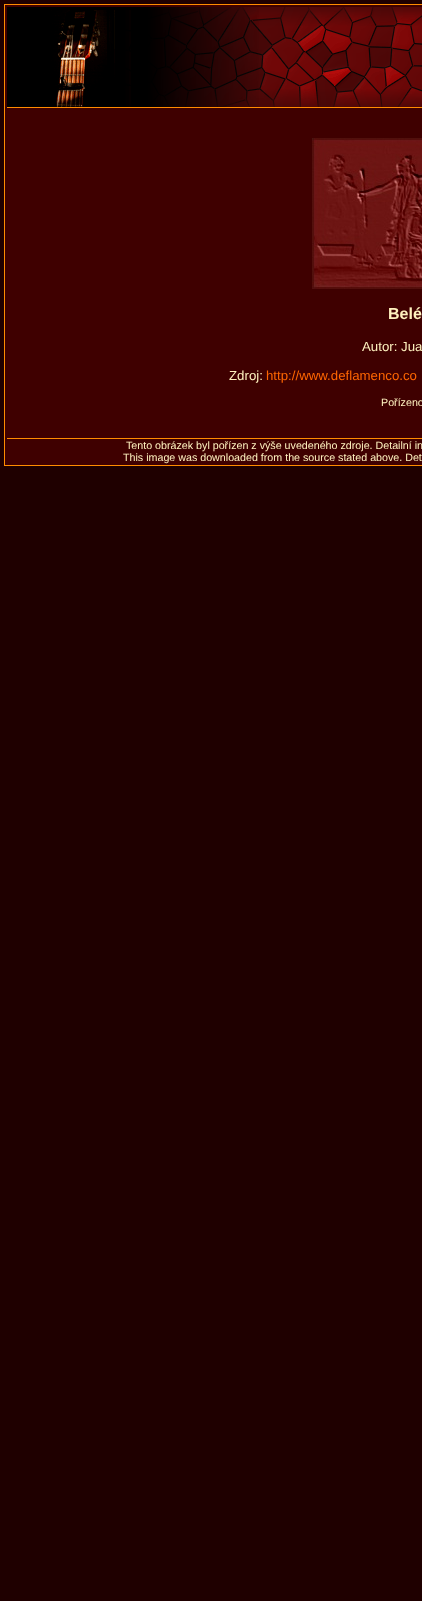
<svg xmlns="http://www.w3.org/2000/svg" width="422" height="1601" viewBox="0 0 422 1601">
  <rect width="100%" height="100%" fill="rgb(31,0,0)"/>
  <rect x="4.5" y="4.5" width="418" height="461" fill="rgb(63,0,0)" stroke="rgb(255,140,0)"/>
  <rect x="7" y="107" width="415" height="1" fill="rgb(255,140,0)"/>
  <image x="7" y="7" width="250" height="100" href="pic1.png"/>
  <image x="257" y="7" width="165" height="100" href="pic2.png"/>
  <image x="312" y="138" width="110" height="151" href="pic3.png"/>
  <text x="388" y="319" font-family="Liberation Sans" font-size="16" font-weight="bold" fill="rgb(255,242,191)">Belé</text>
  <g font-family="Liberation Sans" font-size="13.25" fill="rgb(255,242,191)">
    <text x="362" y="351">Autor: Jua</text>
    <text x="229" y="380">Zdroj:</text>
  </g>
  <text x="266" y="380" font-family="Liberation Sans" font-size="13.25" fill="rgb(255,102,0)">http://www.deflamenco.co</text>
  <text x="381" y="406" font-family="Liberation Sans" font-size="10.7" fill="rgb(255,242,191)">Pořízeno</text>
  <rect x="7" y="438" width="415" height="1" fill="rgb(255,140,0)"/>
  <g font-family="Liberation Sans" font-size="10.7" fill="rgb(255,242,191)">
    <text x="126" y="449">Tento obrázek byl pořízen z výše uvedeného zdroje. Detailní in</text>
    <text x="123" y="461">This image was downloaded from the source stated above. Det</text>
  </g>
</svg>
